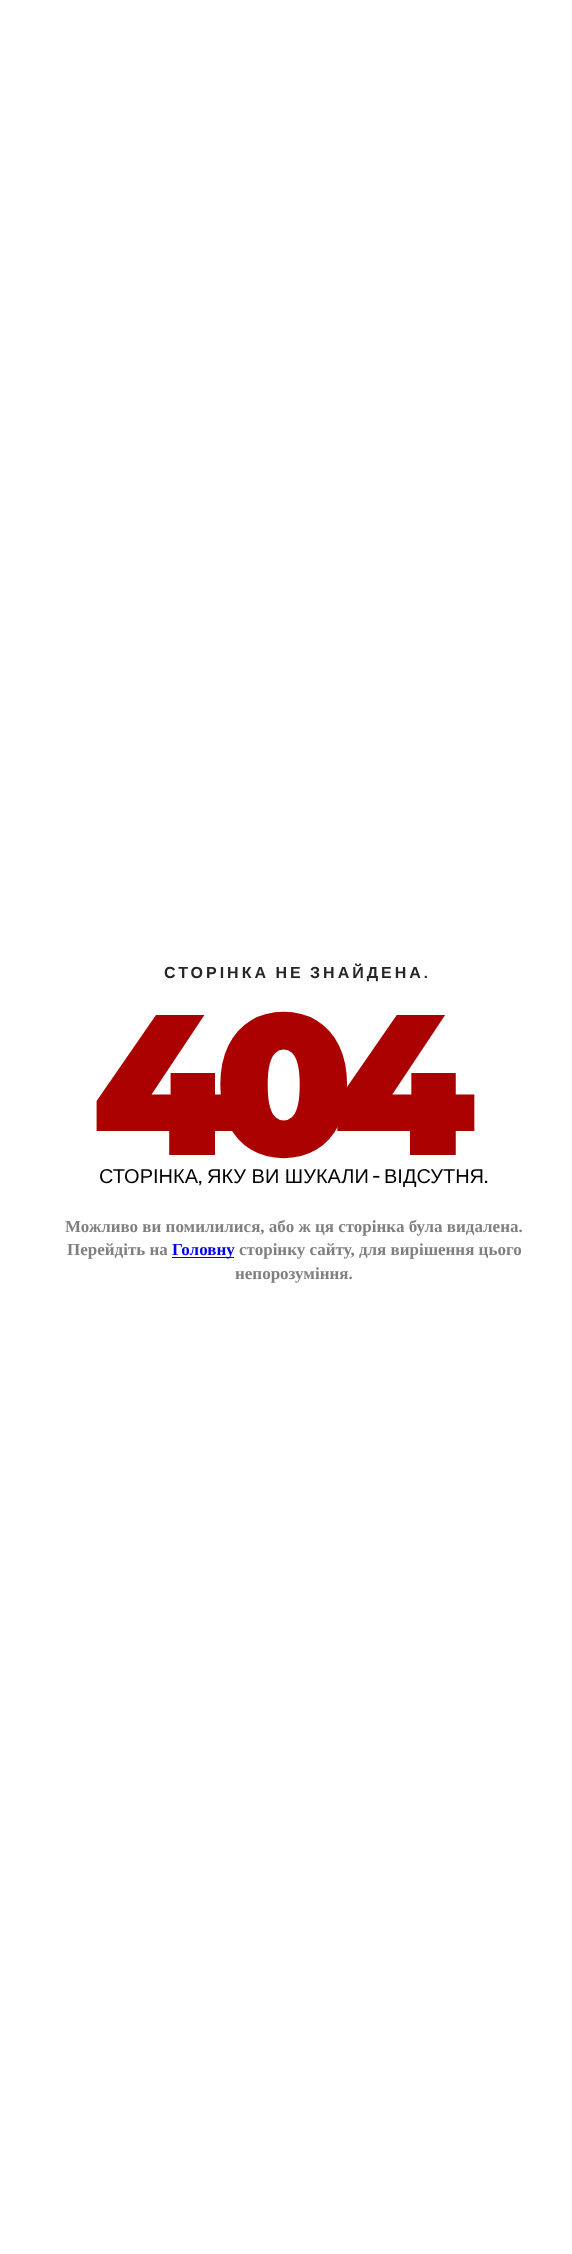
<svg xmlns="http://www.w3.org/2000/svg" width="572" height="2254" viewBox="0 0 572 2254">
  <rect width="100%" height="100%" fill="rgb(255,255,255)"/>
  <text x="164" y="978" word-spacing="-1" font-family="Liberation Sans" font-size="16" font-weight="bold" letter-spacing="3" fill="rgb(38,38,38)">СТОРІНКА НЕ ЗНАЙДЕНА</text>
  <text x="424" y="978" font-family="Cabin" font-size="16" font-weight="bold" letter-spacing="3" fill="rgb(38,38,38)">.</text>
  <text x="92" y="1155" font-family="Montserrat" font-size="200" font-weight="100" letter-spacing="-20" fill="rgb(170,0,0)">404</text>
  <g font-family="Liberation Sans" font-size="20" fill="rgb(0,0,0)">
    <text x="99" y="1183">СТОРІНКА</text>
    <text x="207" y="1183">ЯКУ ВИ ШУКАЛИ</text>
  </g>
  <text x="372" y="1183" font-family="Cabin" font-size="20" fill="rgb(0,0,0)">-</text>
  <text x="384" y="1183" font-family="Liberation Sans" font-size="20" fill="rgb(0,0,0)">ВІДСУТНЯ</text>
  <g font-family="Cabin" font-size="20" fill="rgb(0,0,0)">
    <text x="198" y="1183">,</text>
    <text x="484" y="1183">.</text>
  </g>
  <g font-family="Liberation Serif" font-size="17" font-weight="bold" fill="rgb(128,128,128)">
    <text x="65" y="1232">Можливо ви помилилися, або ж ця сторінка була видалена.</text>
    <text x="67" y="1255">Перейдіть на</text>
  </g>
  <rect x="172" y="1257" width="62" height="1" fill="rgb(0,0,238)"/>
  <text x="172" y="1255" font-family="Liberation Serif" font-size="17" font-weight="bold" fill="rgb(0,0,238)">Головну</text>
  <g font-family="Liberation Serif" font-size="17" font-weight="bold" fill="rgb(128,128,128)">
    <text x="239" y="1255">сторінку сайту, для вирішення цього</text>
    <text x="235" y="1279">непорозуміння.</text>
  </g>
</svg>
